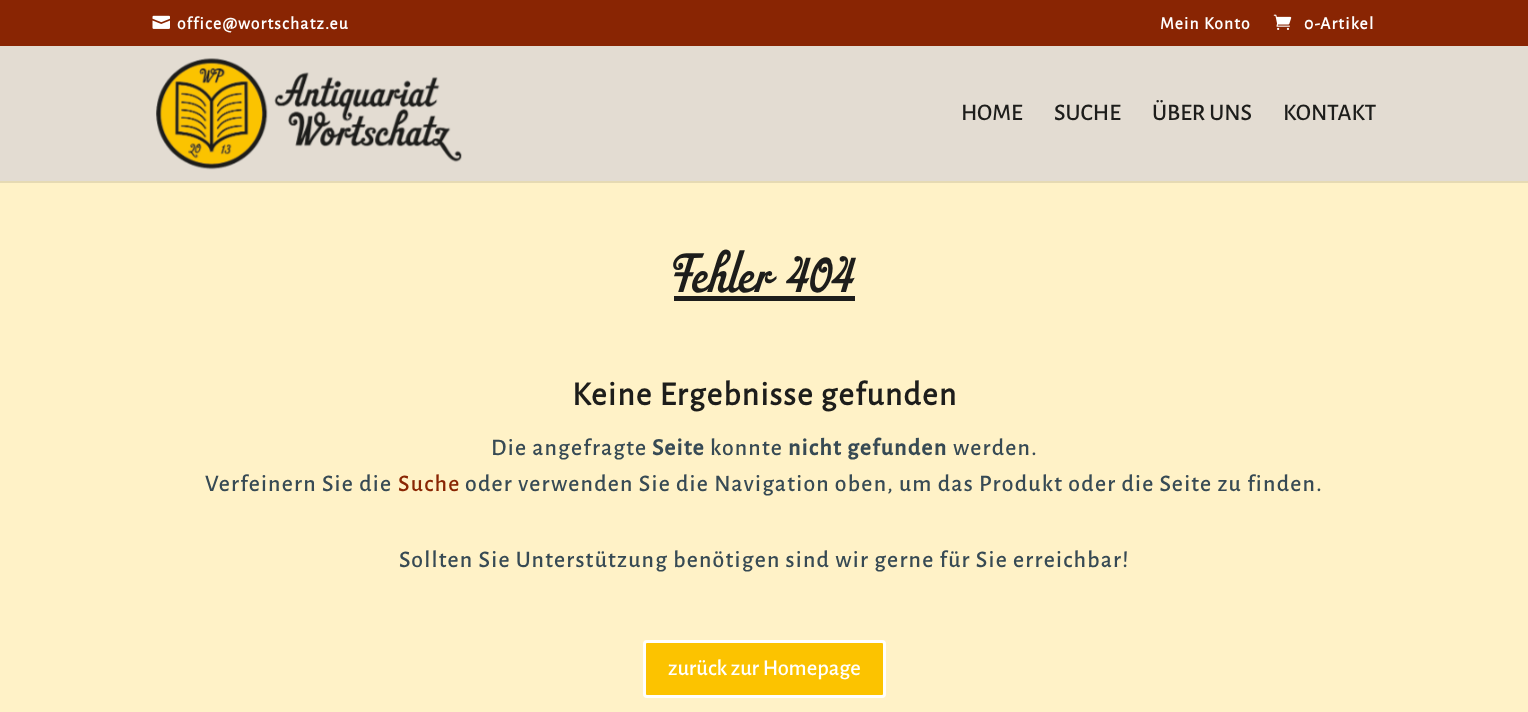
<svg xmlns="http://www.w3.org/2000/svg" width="1528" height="712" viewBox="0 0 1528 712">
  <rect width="100%" height="100%" fill="rgb(255,242,199)"/>
  <rect x="0" y="0" width="1528" height="46" fill="rgb(137,37,3)"/>
  <image x="152" y="15" width="18" height="14" href="pic1.png"/>
  <g font-family="'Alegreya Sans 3'" font-size="17.5" font-weight="bold" letter-spacing="1.25" fill="rgb(255,255,255)">
    <text x="177" y="29">office@wortschatz.eu</text>
    <text x="1160" y="29">Mein Konto</text>
  </g>
  <image x="1273" y="14" width="19" height="16" href="pic2.png"/>
  <text x="1304" y="29" font-family="'Alegreya Sans 3'" font-size="17.5" font-weight="bold" letter-spacing="1.25" fill="rgb(255,255,255)">0-Artikel</text>
  <path d="M0 181V183H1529V48V181Z" fill="rgb(230,218,179)"/>
  <rect x="0" y="46" width="1528" height="135" fill="rgb(227,220,210)"/>
  <image x="156" y="58" width="306" height="112" href="pic3.png"/>
  <g font-family="Alegreya Sans" font-size="23.75" font-weight="500" fill="rgb(29,29,27)">
    <text x="961" y="120">HOME</text>
    <text x="1054" y="120">SUCHE</text>
    <text x="1152" y="120">ÜBER UNS</text>
    <text x="1283" y="120">KONTAKT</text>
  </g>
  <text x="673" y="292" font-family="'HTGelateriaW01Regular'" font-size="57.5" fill="rgb(29,29,27)">Fehler 404</text>
  <rect x="674" y="296" width="181" height="5" fill="rgb(29,29,27)"/>
  <text x="572" y="405" font-family="Alegreya Sans" font-size="33.75" font-weight="bold" letter-spacing="1.25" fill="rgb(29,29,27)">Keine Ergebnisse gefunden</text>
  <text x="491" y="455" font-family="Alegreya Sans" font-size="23.75" font-weight="500" letter-spacing="1.25" fill="rgb(55,74,84)">Die angefragte</text>
  <text x="652" y="455" font-family="'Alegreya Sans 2'" font-size="23.75" font-weight="bold" letter-spacing="1.25" fill="rgb(55,74,84)">Seite</text>
  <text x="710" y="455" font-family="Alegreya Sans" font-size="23.75" font-weight="500" letter-spacing="1.25" fill="rgb(55,74,84)">konnte</text>
  <text x="788" y="455" font-family="'Alegreya Sans 2'" font-size="23.75" font-weight="bold" letter-spacing="1.25" fill="rgb(55,74,84)">nicht gefunden</text>
  <g font-family="Alegreya Sans" font-size="23.75" font-weight="500" letter-spacing="1.25" fill="rgb(55,74,84)">
    <text x="953" y="455">werden.</text>
    <text x="205" y="491">Verfeinern Sie die</text>
  </g>
  <text x="398" y="491" font-family="Alegreya Sans" font-size="23.75" font-weight="500" letter-spacing="1.25" fill="rgb(137,37,3)">Suche</text>
  <g font-family="Alegreya Sans" font-size="23.75" font-weight="500" letter-spacing="1.25" fill="rgb(55,74,84)">
    <text x="465" y="491">oder verwenden Sie die Navigation oben, um das Produkt oder die Seite zu finden.</text>
    <text x="399" y="567">Sollten Sie Unterstützung benötigen sind wir gerne für Sie erreichbar!</text>
  </g>
  <rect x="644.5" y="641.5" width="240" height="55" rx="2.5" fill="rgb(252,195,0)" stroke="rgb(255,255,255)" stroke-width="3"/>
  <text x="668" y="675" font-family="Alegreya Sans" font-size="22.5" font-weight="500" fill="rgb(255,255,255)">zurück zur Homepage</text>
</svg>
